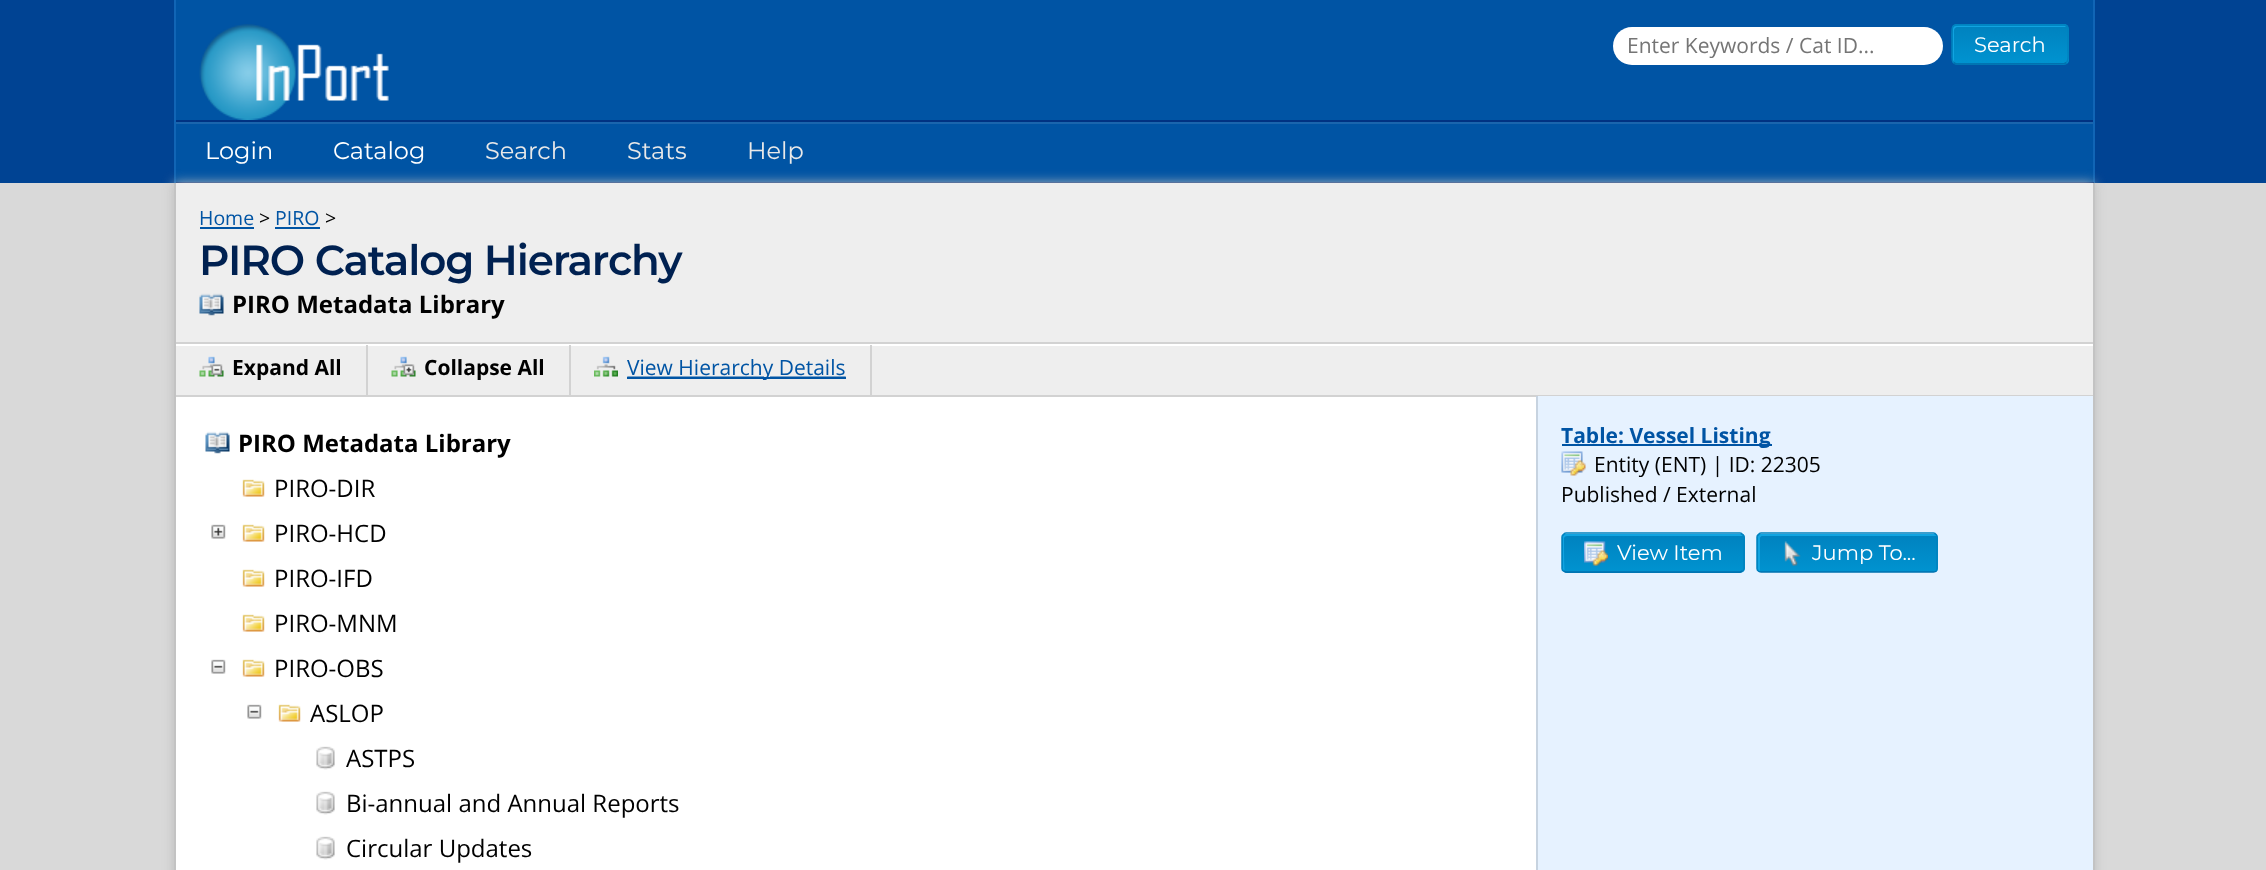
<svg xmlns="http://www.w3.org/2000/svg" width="2266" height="870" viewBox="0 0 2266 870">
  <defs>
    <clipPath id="clip1"><rect x="1952" y="24" width="117" height="41" rx="5"/></clipPath>
    <linearGradient id="g1" gradientUnits="userSpaceOnUse" x1="2010" y1="26" x2="2010" y2="-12"><stop offset="0" stop-color="rgb(0,147,208)"/><stop offset="1" stop-color="rgb(0,130,191)"/></linearGradient>
    <linearGradient id="g2" gradientUnits="userSpaceOnUse" x1="2010" y1="63" x2="2010" y2="26"><stop offset="0" stop-color="rgb(0,147,208)"/><stop offset="1" stop-color="rgb(0,130,191)"/></linearGradient>
    <linearGradient id="g3" gradientUnits="userSpaceOnUse" x1="2010" y1="101" x2="2010" y2="63"><stop offset="0" stop-color="rgb(0,147,208)"/><stop offset="1" stop-color="rgb(0,130,191)"/></linearGradient>
    <clipPath id="clip2"><rect x="1562" y="533" width="183" height="40" rx="5"/></clipPath>
    <linearGradient id="g4" gradientUnits="userSpaceOnUse" x1="1653" y1="572" x2="1653" y2="534"><stop offset="0" stop-color="rgb(0,147,208)"/><stop offset="1" stop-color="rgb(0,130,191)"/></linearGradient>
    <linearGradient id="g5" gradientUnits="userSpaceOnUse" x1="1653" y1="609" x2="1653" y2="572"><stop offset="0" stop-color="rgb(0,147,208)"/><stop offset="1" stop-color="rgb(0,130,191)"/></linearGradient>
    <clipPath id="clip3"><rect x="1757" y="533" width="181" height="40" rx="5"/></clipPath>
    <linearGradient id="g6" gradientUnits="userSpaceOnUse" x1="1847" y1="572" x2="1847" y2="534"><stop offset="0" stop-color="rgb(0,147,208)"/><stop offset="1" stop-color="rgb(0,130,191)"/></linearGradient>
  </defs>
  <rect width="100%" height="100%" fill="rgb(0,67,147)"/>
  <rect x="176" y="0" width="1917" height="120" fill="rgb(0,84,164)"/>
  <rect x="2093" y="0" width="2" height="183" fill="rgb(17,101,181)"/>
  <rect x="174" y="0" width="2" height="120" fill="rgb(17,101,181)"/>
  <image x="199" y="24" width="190" height="96" href="pic1.png"/>
  <rect x="1613" y="27" width="330" height="38" rx="19" fill="rgb(255,255,255)"/>
  <text x="1627" y="53" font-family="Open Sans" font-size="21" fill="rgb(117,117,117)">Enter Keywords / Cat ID...</text>
  <g clip-path="url(#clip1)">
    <rect x="1952" y="24" width="117" height="2" fill="url(#g1)"/>
    <rect x="1952" y="26" width="117" height="37" fill="url(#g2)"/>
    <rect x="1952" y="63" width="117" height="2" fill="url(#g3)"/>
  </g>
  <path d="M1958 27H2066C2066 26 2065 26 2064 26H1956C1954 26 1953 27 1953 29V60C1953 61 1953 62 1954 62V35C1954 32 1953 27 1958 27Z" fill="rgb(17,164,225)"/>
  <path d="M2066.5 62.5L2064.5 63.5L1974 64H1956L1953.5 62.5" fill="none" stroke="rgb(0,113,174)" stroke-width="1.5"/>
  <path d="M1953.5 62.5C1951.5 60.5 1952 57 1952 55V44C1952 20.5 1948.5 25 1974 25H2064C2068.5 25 2068 31 2068 34V49.5C2068 52.5 2069 60 2066.5 62.5" fill="none" stroke="rgb(0,130,191)" stroke-width="1.5"/>
  <text x="1974" y="52" font-family="Montserrat" font-size="21" fill="rgb(255,255,255)">Search</text>
  <rect x="176" y="124" width="1917" height="58" fill="rgb(0,84,164)"/>
  <rect x="174" y="182" width="1920" height="1" fill="rgb(0,50,130)"/>
  <rect x="174" y="120" width="2" height="63" fill="rgb(17,101,181)"/>
  <rect x="176" y="122" width="1917" height="2" fill="rgb(26,101,173)"/>
  <rect x="176" y="120" width="1917" height="2" fill="rgb(0,50,130)"/>
  <g font-family="Montserrat" font-size="24" fill="rgb(255,255,255)">
    <text x="205" y="159">Login</text>
    <text x="333" y="159">Catalog</text>
  </g>
  <g font-family="Montserrat" font-size="24" fill="rgb(233,233,233)">
    <text x="485" y="159">Search</text>
    <text x="627" y="159">Stats</text>
    <text x="747" y="159">Help</text>
  </g>
  <rect x="0" y="183" width="2266" height="687" fill="rgb(217,217,217)"/>
  <rect x="174" y="183" width="1920" height="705" fill="rgb(187,187,187)" filter="blur(6px)"/>
  <rect x="176" y="397" width="1360" height="473" fill="rgb(255,255,255)"/>
  <rect x="2093" y="183" width="2" height="687" fill="rgb(195,195,195)"/>
  <rect x="174" y="183" width="2" height="687" fill="rgb(195,195,195)"/>
  <rect x="176" y="183" width="1917" height="159" fill="rgb(238,238,238)"/>
  <rect x="176" y="342" width="1917" height="2" fill="rgb(210,210,210)"/>
  <text x="199" y="225" font-family="Open Sans" font-size="19.5" fill="rgb(0,84,164)">Home</text>
  <rect x="200" y="227" width="54" height="2" fill="rgb(0,84,164)"/>
  <text x="259" y="225" font-family="Open Sans" font-size="19.5" fill="rgb(0,0,0)">&gt;</text>
  <text x="275" y="225" font-family="Open Sans" font-size="19.5" fill="rgb(0,84,164)">PIRO</text>
  <rect x="275" y="227" width="45" height="2" fill="rgb(0,84,164)"/>
  <text x="325" y="225" font-family="Open Sans" font-size="19.5" fill="rgb(0,0,0)">&gt;</text>
  <text x="199" y="275" font-family="Montserrat" font-size="42" font-weight="600" letter-spacing="-1.1" fill="rgb(0,33,81)">PIRO Catalog Hierarchy</text>
  <image x="199" y="293" width="25" height="23" href="pic2.png"/>
  <text x="232" y="313" font-family="Open Sans" font-size="24" font-weight="bold" fill="rgb(0,0,0)">PIRO Metadata Library</text>
  <rect x="176" y="346" width="1917" height="49" fill="rgb(238,238,238)"/>
  <rect x="176" y="344" width="1917" height="2" fill="rgb(255,255,255)"/>
  <rect x="176" y="395" width="1917" height="2" fill="rgb(210,210,210)"/>
  <rect x="366" y="345" width="2" height="50" fill="rgb(210,210,210)"/>
  <image x="199" y="356" width="25" height="21" href="pic3.png"/>
  <text x="232" y="375" font-family="Open Sans" font-size="21" font-weight="bold" fill="rgb(0,0,0)">Expand All</text>
  <rect x="569" y="345" width="2" height="50" fill="rgb(210,210,210)"/>
  <image x="391" y="356" width="25" height="21" href="pic4.png"/>
  <text x="424" y="375" font-family="Open Sans" font-size="21" font-weight="bold" fill="rgb(0,0,0)">Collapse All</text>
  <rect x="870" y="345" width="2" height="50" fill="rgb(210,210,210)"/>
  <image x="594" y="356" width="252" height="21" href="pic5.png"/>
  <rect x="627" y="377" width="219" height="2" fill="rgb(0,84,164)"/>
  <text x="627" y="375" font-family="Open Sans" font-size="21" fill="rgb(0,84,164)">View Hierarchy Details</text>
  <image x="205" y="431" width="25" height="23" href="pic6.png"/>
  <text x="238" y="452" font-family="Open Sans" font-size="24" font-weight="bold" fill="rgb(0,0,0)">PIRO Metadata Library</text>
  <image x="242" y="479" width="23" height="18" href="pic7.png"/>
  <text x="274" y="497" font-family="Open Sans" font-size="24" fill="rgb(0,0,0)">PIRO-DIR</text>
  <image x="211" y="524" width="15" height="15" href="pic8.png"/>
  <image x="242" y="524" width="23" height="18" href="pic7.png"/>
  <text x="274" y="542" font-family="Open Sans" font-size="24" fill="rgb(0,0,0)">PIRO-HCD</text>
  <image x="242" y="569" width="23" height="18" href="pic7.png"/>
  <text x="274" y="587" font-family="Open Sans" font-size="24" fill="rgb(0,0,0)">PIRO-IFD</text>
  <image x="242" y="614" width="23" height="18" href="pic7.png"/>
  <text x="274" y="632" font-family="Open Sans" font-size="24" fill="rgb(0,0,0)">PIRO-MNM</text>
  <image x="211" y="659" width="15" height="15" href="pic9.png"/>
  <image x="242" y="659" width="23" height="18" href="pic7.png"/>
  <text x="274" y="677" font-family="Open Sans" font-size="24" fill="rgb(0,0,0)">PIRO-OBS</text>
  <image x="247" y="704" width="15" height="15" href="pic9.png"/>
  <image x="278" y="704" width="23" height="18" href="pic7.png"/>
  <text x="310" y="722" font-family="Open Sans" font-size="24" fill="rgb(0,0,0)">ASLOP</text>
  <image x="316" y="746" width="19" height="24" href="pic10.png"/>
  <text x="346" y="767" font-family="Open Sans" font-size="24" fill="rgb(0,0,0)">ASTPS</text>
  <image x="316" y="791" width="19" height="24" href="pic10.png"/>
  <text x="346" y="812" font-family="Open Sans" font-size="24" fill="rgb(0,0,0)">Bi-annual and Annual Reports</text>
  <image x="316" y="836" width="19" height="24" href="pic10.png"/>
  <text x="346" y="857" font-family="Open Sans" font-size="24" fill="rgb(0,0,0)">Circular Updates</text>
  <rect x="1538" y="396" width="555" height="474" fill="rgb(230,242,255)"/>
  <rect x="1536" y="396" width="2" height="474" fill="rgb(199,211,224)"/>
  <rect x="1562" y="444" width="210" height="2" fill="rgb(0,84,164)"/>
  <text x="1561" y="443" font-family="Open Sans" font-size="21" font-weight="bold" fill="rgb(0,84,164)">Table: Vessel Listing</text>
  <image x="1561" y="451" width="25" height="25" href="pic11.png"/>
  <g font-family="Open Sans" font-size="21" fill="rgb(0,0,0)">
    <text x="1594" y="472">Entity (ENT) | ID: 22305</text>
    <text x="1561" y="502">Published / External</text>
  </g>
  <g clip-path="url(#clip2)">
    <rect x="1562" y="534" width="183" height="38" fill="url(#g4)"/>
    <rect x="1562" y="572" width="183" height="1" fill="url(#g5)"/>
  </g>
  <path d="M1568 536H1743C1743 535 1741 534 1740 534H1566C1564 534 1563 535 1563 537V569C1563 570 1564 571 1565 572C1564 571 1564 539 1564 538C1565 536 1567 536 1568 536Z" fill="rgb(17,164,225)"/>
  <path d="M1742.5 571L1740 572H1565.5L1563.5 571" fill="none" stroke="rgb(0,113,174)" stroke-width="1.5"/>
  <path d="M1563.5 571C1562.5 570.5 1562 569.5 1562 568.5V537C1562 536 1562.5 535 1563.5 534.5C1564 533.5 1565 533 1566 533H1740C1741 533 1742 533.5 1742.5 534.5C1743.5 535 1744 536 1744 537V568.5C1744 569.5 1743.5 570.5 1742.5 571" fill="none" stroke="rgb(0,130,191)" stroke-width="1.5"/>
  <image x="1584" y="541" width="24" height="25" href="pic12.png"/>
  <text x="1617" y="560" font-family="Montserrat" font-size="21" fill="rgb(255,255,255)">View Item</text>
  <g clip-path="url(#clip3)">
    <rect x="1757" y="534" width="181" height="38" fill="url(#g6)"/>
  </g>
  <path d="M1762 536H1935H1937C1937 535 1935 534 1934 534H1761C1759 534 1758 535 1758 537V569C1758 570 1759 572 1760 572V570V538C1760 537 1761 536 1762 536Z" fill="rgb(17,164,225)"/>
  <path d="M1936 571C1935.5 572 1934.5 572 1933.5 572H1761C1760 572 1759 572 1758.5 571" fill="none" stroke="rgb(0,113,174)" stroke-width="1.5"/>
  <path d="M1758.5 571C1757.5 570.5 1757 569.5 1757 568.5V537C1757 536 1757.5 535 1758.5 534.5C1759 533.5 1760 533 1761 533H1933.5C1934.5 533 1935.5 533.5 1936 534.5C1937 535 1937 536 1937 537V568.5C1937 569.5 1937 570.5 1936 571" fill="none" stroke="rgb(0,130,191)" stroke-width="1.5"/>
  <image x="1784" y="541" width="17" height="25" href="pic13.png"/>
  <text x="1812" y="560" font-family="Montserrat" font-size="21" fill="rgb(255,255,255)">Jump To...</text>
</svg>
